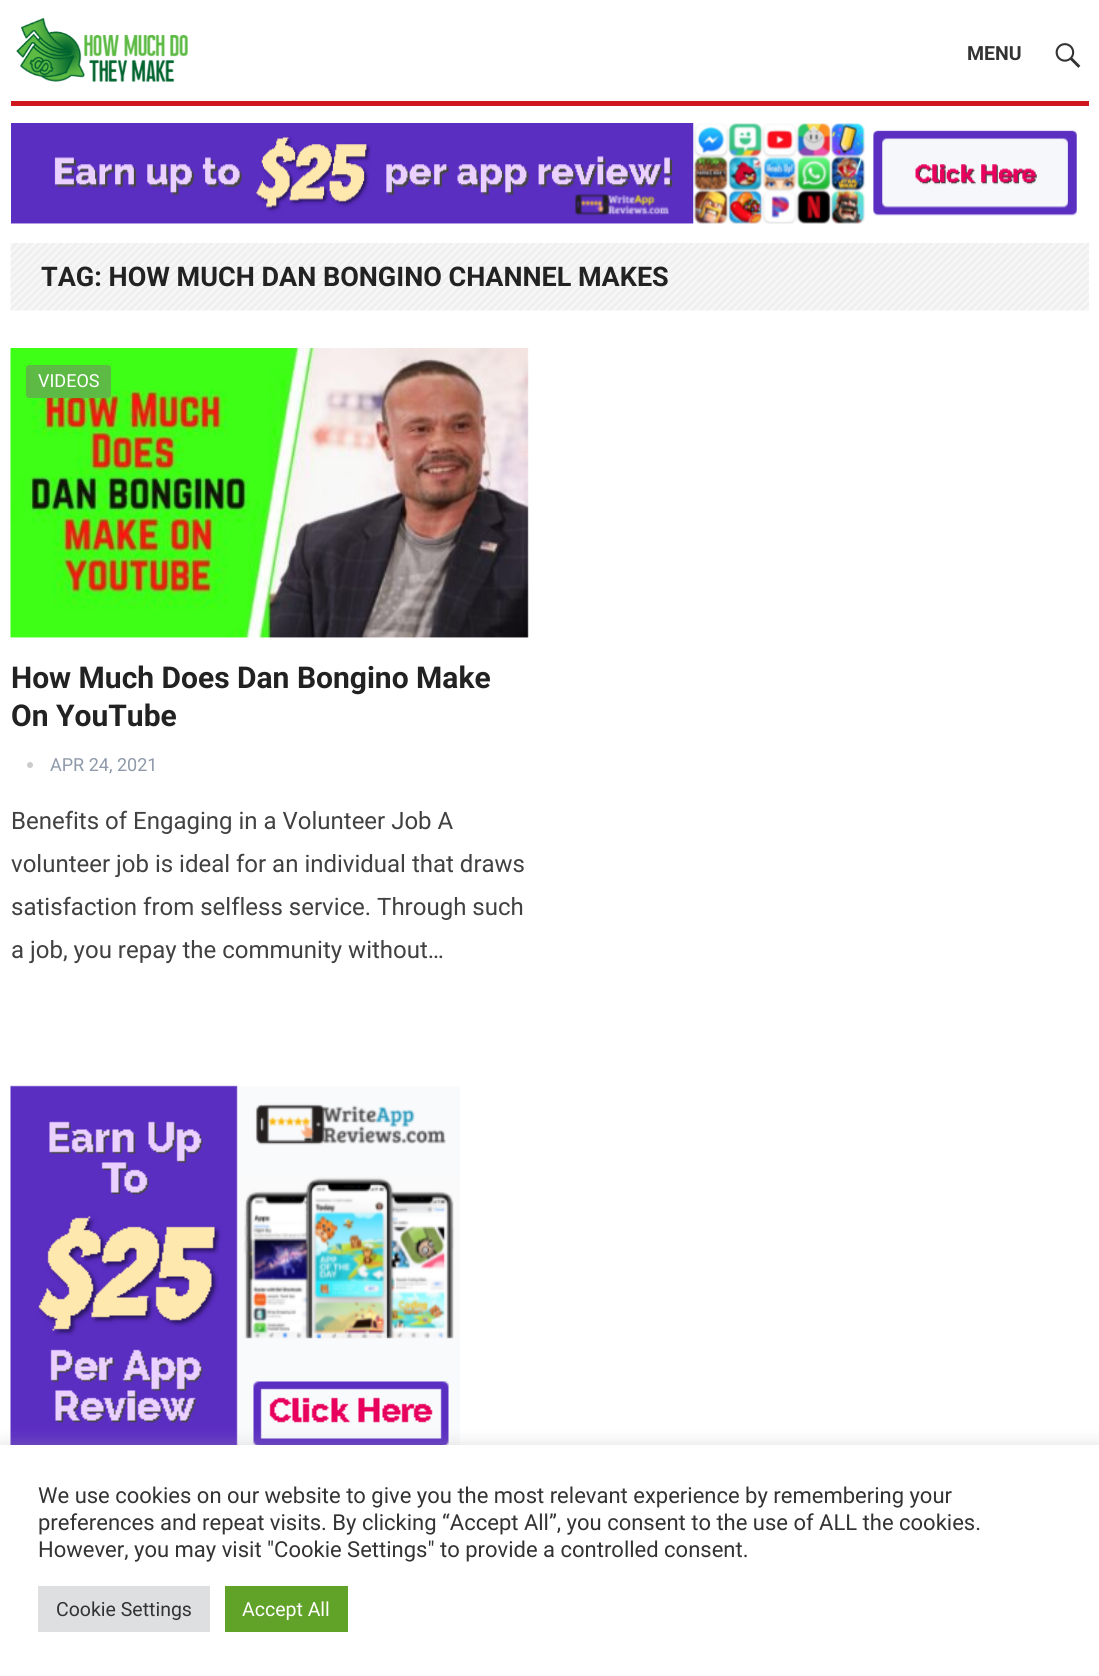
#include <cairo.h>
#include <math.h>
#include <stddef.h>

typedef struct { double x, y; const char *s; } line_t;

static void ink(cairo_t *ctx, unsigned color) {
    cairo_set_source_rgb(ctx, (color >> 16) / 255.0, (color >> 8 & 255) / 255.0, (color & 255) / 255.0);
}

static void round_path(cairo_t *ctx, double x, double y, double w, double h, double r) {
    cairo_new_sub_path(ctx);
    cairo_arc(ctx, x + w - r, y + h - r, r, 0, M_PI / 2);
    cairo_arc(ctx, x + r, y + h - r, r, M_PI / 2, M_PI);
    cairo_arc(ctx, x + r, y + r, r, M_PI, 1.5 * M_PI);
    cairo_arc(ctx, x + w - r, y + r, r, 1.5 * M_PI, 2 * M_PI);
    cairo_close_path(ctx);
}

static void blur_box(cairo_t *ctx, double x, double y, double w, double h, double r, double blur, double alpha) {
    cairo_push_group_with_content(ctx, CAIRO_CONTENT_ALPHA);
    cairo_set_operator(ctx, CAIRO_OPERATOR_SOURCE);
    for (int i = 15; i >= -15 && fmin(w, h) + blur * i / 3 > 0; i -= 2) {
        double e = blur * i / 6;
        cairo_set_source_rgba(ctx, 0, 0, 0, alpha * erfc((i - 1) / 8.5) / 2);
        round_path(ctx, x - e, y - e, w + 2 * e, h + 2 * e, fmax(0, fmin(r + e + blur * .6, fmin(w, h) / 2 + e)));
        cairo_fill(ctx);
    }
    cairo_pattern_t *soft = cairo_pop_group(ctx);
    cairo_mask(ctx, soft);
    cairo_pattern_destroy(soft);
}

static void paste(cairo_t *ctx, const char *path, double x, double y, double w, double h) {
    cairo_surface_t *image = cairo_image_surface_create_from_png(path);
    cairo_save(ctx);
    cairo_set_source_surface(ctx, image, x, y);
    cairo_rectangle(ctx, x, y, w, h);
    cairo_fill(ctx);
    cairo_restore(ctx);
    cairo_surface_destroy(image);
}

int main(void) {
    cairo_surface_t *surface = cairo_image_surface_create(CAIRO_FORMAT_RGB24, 1099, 1676);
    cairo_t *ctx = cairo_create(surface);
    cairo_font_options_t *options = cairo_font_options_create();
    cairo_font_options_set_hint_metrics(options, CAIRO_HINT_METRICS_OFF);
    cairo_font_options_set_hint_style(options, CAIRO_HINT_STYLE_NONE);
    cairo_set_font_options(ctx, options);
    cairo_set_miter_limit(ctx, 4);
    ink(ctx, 0xFFFFFF);
    cairo_paint(ctx);
    ink(ctx, 0xCE181E);
    cairo_rectangle(ctx, 11, 101, 1078, 5);
    cairo_fill(ctx);
    paste(ctx, "media/1.png", 16, 17, 172, 65);
    paste(ctx, "media/2.png", 11, 123, 1066, 101);
    cairo_select_font_face(ctx, "Roboto", CAIRO_FONT_SLANT_NORMAL, CAIRO_FONT_WEIGHT_BOLD);
    cairo_set_font_size(ctx, 19.5);
    ink(ctx, 0x333333);
    cairo_move_to(ctx, 967, 60);
    cairo_show_text(ctx, "MENU");
    paste(ctx, "media/3.png", 1055, 43, 26, 25);
    paste(ctx, "media/4.png", 10, 243, 1079, 68);
    cairo_set_font_size(ctx, 27);
    ink(ctx, 0x222222);
    cairo_move_to(ctx, 41, 286);
    cairo_show_text(ctx, "TAG: HOW MUCH DAN BONGINO CHANNEL MAKES");
    paste(ctx, "media/5.png", 10, 348, 519, 290);
    ink(ctx, 0x5DBA45);
    round_path(ctx, 26, 365, 85, 33, 3);
    cairo_fill(ctx);
    cairo_select_font_face(ctx, "Roboto", CAIRO_FONT_SLANT_NORMAL, CAIRO_FONT_WEIGHT_NORMAL);
    cairo_set_font_size(ctx, 18);
    ink(ctx, 0xFFFFFF);
    cairo_move_to(ctx, 38, 387);
    cairo_show_text(ctx, "VIDEOS");
    cairo_select_font_face(ctx, "Roboto", CAIRO_FONT_SLANT_NORMAL, CAIRO_FONT_WEIGHT_BOLD);
    cairo_set_font_size(ctx, 30);
    ink(ctx, 0x222222);
    cairo_move_to(ctx, 11, 688);
    cairo_show_text(ctx, "How Much Does Dan Bongino Make");
    cairo_move_to(ctx, 11, 726);
    cairo_show_text(ctx, "On YouTube");
    ink(ctx, 0xCCCCCC);
    cairo_new_path(ctx);
    cairo_arc(ctx, 30, 765, 3, 0, 2 * M_PI);
    cairo_fill(ctx);
    cairo_select_font_face(ctx, "Roboto", CAIRO_FONT_SLANT_NORMAL, CAIRO_FONT_WEIGHT_NORMAL);
    cairo_set_font_size(ctx, 18);
    ink(ctx, 0x8E99A9);
    cairo_move_to(ctx, 50, 771);
    cairo_show_text(ctx, "APR 24, 2021");
    cairo_set_font_size(ctx, 24);
    ink(ctx, 0x414141);
    {
        static const line_t items[] = {
            {11, 829, "Benefits of Engaging in a Volunteer Job A"},
            {11, 872, "volunteer job is ideal for an individual that draws"},
            {11, 915, "satisfaction from selfless service. Through such"},
            {11, 958, "a job, you repay the community without…"},
        };
        for (size_t i = 0; i < sizeof items / sizeof *items; i++) {
            cairo_move_to(ctx, items[i].x, items[i].y);
            cairo_show_text(ctx, items[i].s);
        }
    }
    paste(ctx, "media/6.png", 10, 1085, 450, 360);
    ink(ctx, 0xACABAB);
    blur_box(ctx, 0, 1443, 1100, 233, 0, 7.5, 0.3);
    ink(ctx, 0xFFFFFF);
    cairo_rectangle(ctx, 0, 1445, 1099, 231);
    cairo_fill(ctx);
    cairo_set_font_size(ctx, 22);
    ink(ctx, 0x333333);
    {
        static const line_t items[] = {
            {38, 1503, "We use cookies on our website to give you the most relevant experience by remembering your"},
            {38, 1530, "preferences and repeat visits. By clicking “Accept All”, you consent to the use of ALL the cookies."},
            {38, 1557, "However, you may visit \"Cookie Settings\" to provide a controlled consent."},
        };
        for (size_t i = 0; i < sizeof items / sizeof *items; i++) {
            cairo_move_to(ctx, items[i].x, items[i].y);
            cairo_show_text(ctx, items[i].s);
        }
    }
    ink(ctx, 0xDEDFE0);
    cairo_rectangle(ctx, 38, 1586, 172, 46);
    cairo_fill(ctx);
    cairo_set_font_size(ctx, 19.5);
    ink(ctx, 0x333333);
    cairo_move_to(ctx, 56, 1616);
    cairo_show_text(ctx, "Cookie Settings");
    ink(ctx, 0x61A229);
    cairo_rectangle(ctx, 225, 1586, 123, 46);
    cairo_fill(ctx);
    ink(ctx, 0xFFFFFF);
    cairo_move_to(ctx, 242, 1616);
    cairo_show_text(ctx, "Accept All");
    cairo_surface_write_to_png(surface, "image.png");
    cairo_font_options_destroy(options);
    cairo_destroy(ctx);
    cairo_surface_destroy(surface);
    return 0;
}
